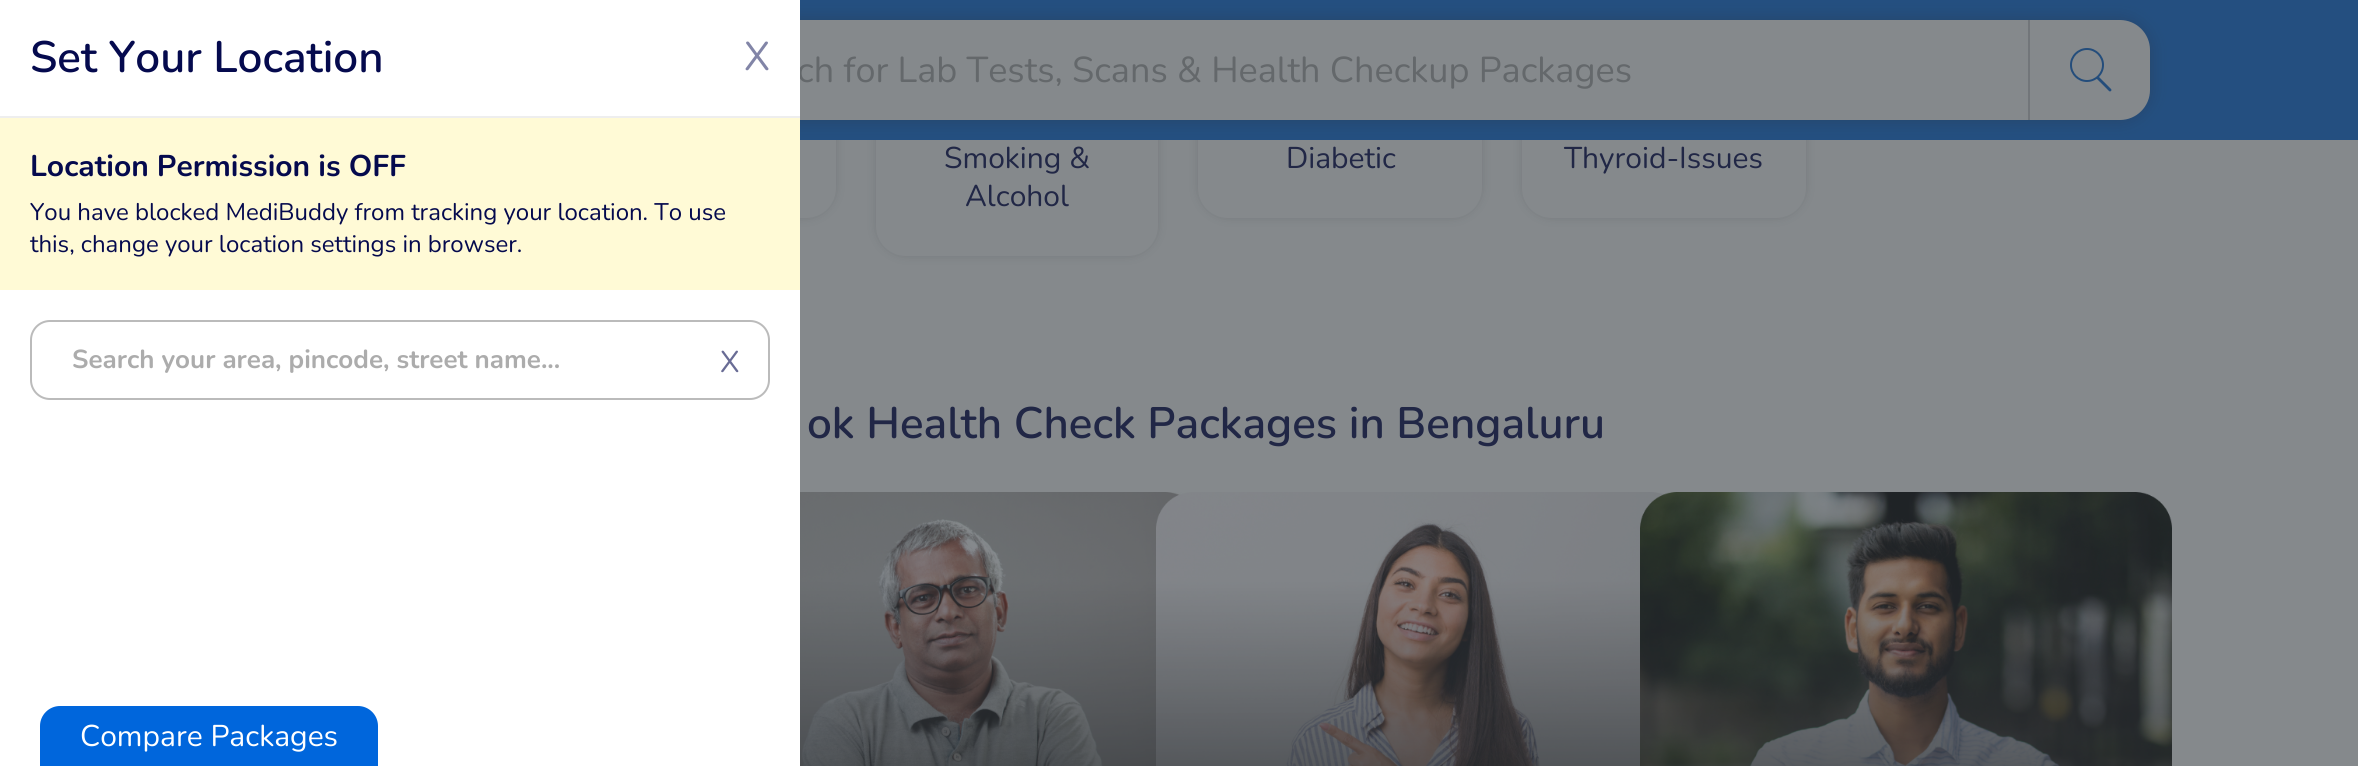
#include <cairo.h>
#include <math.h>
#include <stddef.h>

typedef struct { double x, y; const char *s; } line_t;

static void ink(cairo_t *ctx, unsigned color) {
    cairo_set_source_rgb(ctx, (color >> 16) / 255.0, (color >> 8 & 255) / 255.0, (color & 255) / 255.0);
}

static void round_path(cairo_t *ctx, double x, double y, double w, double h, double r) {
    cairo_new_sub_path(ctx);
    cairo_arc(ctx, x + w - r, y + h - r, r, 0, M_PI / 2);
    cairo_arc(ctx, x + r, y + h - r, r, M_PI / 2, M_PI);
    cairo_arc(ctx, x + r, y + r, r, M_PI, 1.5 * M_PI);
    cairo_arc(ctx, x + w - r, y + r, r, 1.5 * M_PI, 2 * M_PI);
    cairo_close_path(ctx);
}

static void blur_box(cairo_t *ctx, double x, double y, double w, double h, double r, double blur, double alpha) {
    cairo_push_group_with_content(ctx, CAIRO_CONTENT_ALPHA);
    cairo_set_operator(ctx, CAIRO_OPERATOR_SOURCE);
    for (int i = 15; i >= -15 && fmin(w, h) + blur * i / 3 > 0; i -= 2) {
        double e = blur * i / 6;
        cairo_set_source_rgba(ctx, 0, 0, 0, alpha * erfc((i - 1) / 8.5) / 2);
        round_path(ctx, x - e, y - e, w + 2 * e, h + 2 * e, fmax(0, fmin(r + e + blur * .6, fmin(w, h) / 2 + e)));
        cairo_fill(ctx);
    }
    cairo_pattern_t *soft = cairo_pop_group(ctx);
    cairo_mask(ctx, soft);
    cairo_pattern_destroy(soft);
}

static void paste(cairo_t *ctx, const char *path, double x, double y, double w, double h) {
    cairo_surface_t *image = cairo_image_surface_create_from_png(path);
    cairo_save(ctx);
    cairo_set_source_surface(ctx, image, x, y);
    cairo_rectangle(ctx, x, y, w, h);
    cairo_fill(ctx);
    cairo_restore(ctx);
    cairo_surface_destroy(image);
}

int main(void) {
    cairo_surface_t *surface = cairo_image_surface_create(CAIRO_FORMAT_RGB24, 2358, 766);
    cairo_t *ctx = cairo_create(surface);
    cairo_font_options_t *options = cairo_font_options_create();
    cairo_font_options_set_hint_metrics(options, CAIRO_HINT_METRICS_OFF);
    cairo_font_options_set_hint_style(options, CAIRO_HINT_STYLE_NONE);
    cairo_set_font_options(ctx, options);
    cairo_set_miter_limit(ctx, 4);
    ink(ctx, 0x85898C);
    cairo_paint(ctx);
    ink(ctx, 0x292C30);
    blur_box(ctx, 552, -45, 284, 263, 30, 5, 0.16);
    ink(ctx, 0x85898C);
    round_path(ctx, 552, -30, 284, 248, 30);
    cairo_fill(ctx);
    ink(ctx, 0x292C30);
    blur_box(ctx, 876, -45, 282, 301, 30, 5, 0.16);
    ink(ctx, 0x85898C);
    round_path(ctx, 876, -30, 282, 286, 30);
    cairo_fill(ctx);
    ink(ctx, 0x292C30);
    blur_box(ctx, 1198, -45, 284, 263, 30, 5, 0.16);
    ink(ctx, 0x85898C);
    round_path(ctx, 1198, -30, 284, 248, 30);
    cairo_fill(ctx);
    ink(ctx, 0x292C30);
    blur_box(ctx, 1522, -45, 284, 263, 30, 5, 0.16);
    ink(ctx, 0x85898C);
    round_path(ctx, 1522, -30, 284, 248, 30);
    cairo_fill(ctx);
    ink(ctx, 0x244F80);
    cairo_rectangle(ctx, 800, 0, 1558, 140);
    cairo_fill(ctx);
    ink(ctx, 0x292C30);
    blur_box(ctx, 694, 20, 1456, 100, 30, 8, 0.3);
    ink(ctx, 0x85898C);
    cairo_rectangle(ctx, 800, 20, 1228, 100);
    cairo_fill(ctx);
    cairo_select_font_face(ctx, "Nunito", CAIRO_FONT_SLANT_NORMAL, CAIRO_FONT_WEIGHT_NORMAL);
    cairo_set_font_size(ctx, 36);
    ink(ctx, 0x64686B);
    cairo_move_to(ctx, 797, 82);
    cairo_show_text(ctx, "ch for Lab Tests, Scans & Health Checkup Packages");
    ink(ctx, 0xFFFFFF);
    cairo_rectangle(ctx, 0, 0, 800, 766);
    cairo_fill(ctx);
    cairo_select_font_face(ctx, "Nunito SemiBold", CAIRO_FONT_SLANT_NORMAL, CAIRO_FONT_WEIGHT_NORMAL);
    cairo_set_font_size(ctx, 44);
    ink(ctx, 0x050A4E);
    cairo_move_to(ctx, 30, 72);
    cairo_show_text(ctx, "Set Your Location");
    cairo_select_font_face(ctx, "Nunito", CAIRO_FONT_SLANT_NORMAL, CAIRO_FONT_WEIGHT_NORMAL);
    cairo_set_font_size(ctx, 40);
    ink(ctx, 0x8285A7);
    cairo_move_to(ctx, 744, 70);
    cairo_show_text(ctx, "X");
    ink(ctx, 0xEEEEEE);
    cairo_rectangle(ctx, 0, 116, 800, 2);
    cairo_fill(ctx);
    ink(ctx, 0xFFFAD6);
    cairo_rectangle(ctx, 0, 118, 800, 172);
    cairo_fill(ctx);
    cairo_select_font_face(ctx, "Nunito", CAIRO_FONT_SLANT_NORMAL, CAIRO_FONT_WEIGHT_BOLD);
    cairo_set_font_size(ctx, 30);
    ink(ctx, 0x050A4E);
    cairo_move_to(ctx, 30, 176);
    cairo_show_text(ctx, "Location Permission is OFF");
    cairo_select_font_face(ctx, "Nunito", CAIRO_FONT_SLANT_NORMAL, CAIRO_FONT_WEIGHT_NORMAL);
    cairo_set_font_size(ctx, 24);
    cairo_move_to(ctx, 30, 220);
    cairo_show_text(ctx, "You have blocked MediBuddy from tracking your location. To use");
    cairo_move_to(ctx, 30, 252);
    cairo_show_text(ctx, "this, change your location settings in browser.");
    round_path(ctx, 31, 321, 738, 78, 19);
    ink(ctx, 0xBBBBBB);
    cairo_stroke(ctx);
    cairo_select_font_face(ctx, "Nunito", CAIRO_FONT_SLANT_NORMAL, CAIRO_FONT_WEIGHT_BOLD);
    cairo_set_font_size(ctx, 26);
    ink(ctx, 0xACACAC);
    cairo_move_to(ctx, 72, 368);
    cairo_show_text(ctx, "Search your area, pincode, street name...");
    cairo_select_font_face(ctx, "Nunito", CAIRO_FONT_SLANT_NORMAL, CAIRO_FONT_WEIGHT_NORMAL);
    cairo_set_font_size(ctx, 30);
    ink(ctx, 0x696C95);
    cairo_move_to(ctx, 720, 372);
    cairo_show_text(ctx, "X");
    ink(ctx, 0x85898C);
    cairo_new_path(ctx);
    cairo_move_to(ctx, 2028, 20);
    cairo_line_to(ctx, 2120, 20);
    cairo_curve_to(ctx, 2136.5, 20, 2150, 33.5, 2150, 50);
    cairo_line_to(ctx, 2150, 90);
    cairo_curve_to(ctx, 2150, 106.5, 2136.5, 120, 2120, 120);
    cairo_line_to(ctx, 2028, 120);
    cairo_close_path(ctx);
    cairo_fill(ctx);
    ink(ctx, 0x72767A);
    cairo_rectangle(ctx, 2028, 20, 2, 100);
    cairo_fill(ctx);
    paste(ctx, "media/1.png", 2070, 48, 42, 44);
    ink(ctx, 0x212746);
    {
        static const line_t items[] = {
            {944, 168, "Smoking &"},
            {965, 206, "Alcohol"},
            {1286, 168, "Diabetic"},
            {1564, 168, "Thyroid-Issues"},
        };
        for (size_t i = 0; i < sizeof items / sizeof *items; i++) {
            cairo_move_to(ctx, items[i].x, items[i].y);
            cairo_show_text(ctx, items[i].s);
        }
    }
    cairo_select_font_face(ctx, "Nunito SemiBold", CAIRO_FONT_SLANT_NORMAL, CAIRO_FONT_WEIGHT_NORMAL);
    cairo_set_font_size(ctx, 44);
    cairo_move_to(ctx, 807, 438);
    cairo_show_text(ctx, "ok Health Check Packages in Bengaluru");
    paste(ctx, "media/2.png", 800, 492, 383, 274);
    paste(ctx, "media/3.png", 1156, 492, 510, 274);
    paste(ctx, "media/4.png", 1640, 492, 532, 274);
    ink(ctx, 0x0066DC);
    cairo_new_path(ctx);
    cairo_move_to(ctx, 60, 706);
    cairo_line_to(ctx, 358, 706);
    cairo_curve_to(ctx, 369, 706, 378, 715, 378, 726);
    cairo_line_to(ctx, 378, 766);
    cairo_line_to(ctx, 40, 766);
    cairo_line_to(ctx, 40, 726);
    cairo_curve_to(ctx, 40, 715, 49, 706, 60, 706);
    cairo_close_path(ctx);
    cairo_fill(ctx);
    cairo_select_font_face(ctx, "Nunito", CAIRO_FONT_SLANT_NORMAL, CAIRO_FONT_WEIGHT_NORMAL);
    cairo_set_font_size(ctx, 30);
    ink(ctx, 0xFFFFFF);
    cairo_move_to(ctx, 80, 746);
    cairo_show_text(ctx, "Compare Packages");
    cairo_surface_write_to_png(surface, "image.png");
    cairo_font_options_destroy(options);
    cairo_destroy(ctx);
    cairo_surface_destroy(surface);
    return 0;
}
